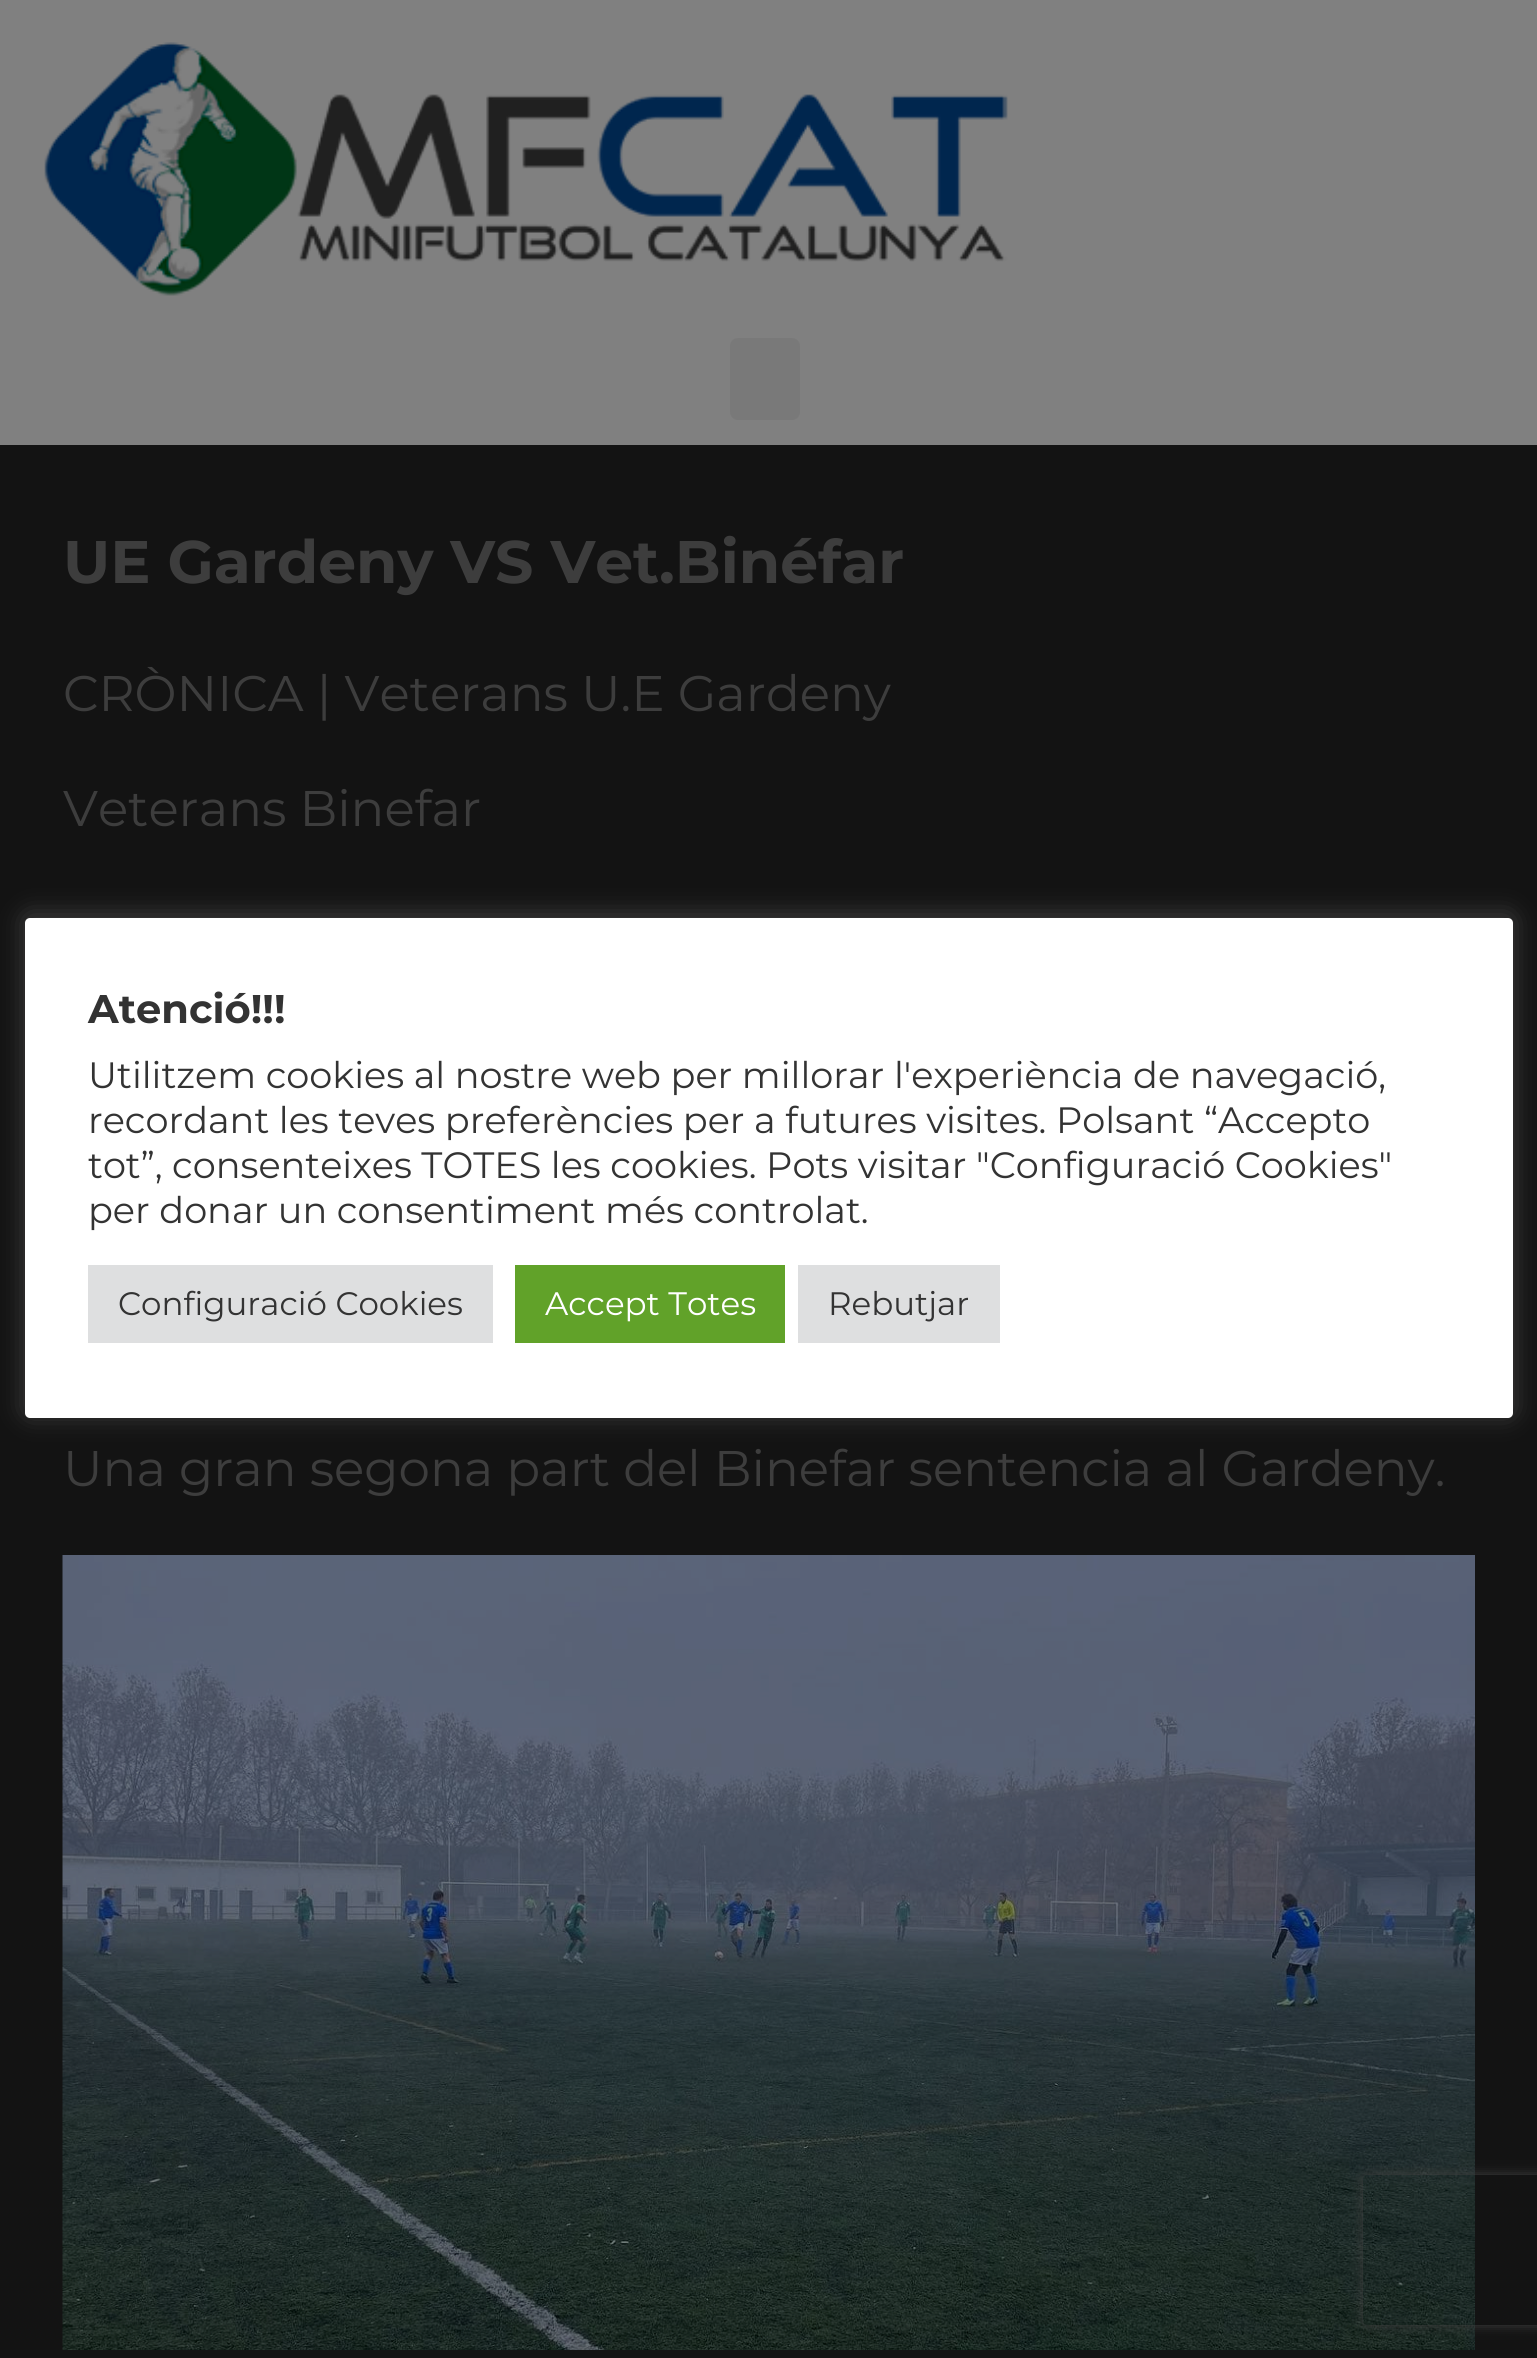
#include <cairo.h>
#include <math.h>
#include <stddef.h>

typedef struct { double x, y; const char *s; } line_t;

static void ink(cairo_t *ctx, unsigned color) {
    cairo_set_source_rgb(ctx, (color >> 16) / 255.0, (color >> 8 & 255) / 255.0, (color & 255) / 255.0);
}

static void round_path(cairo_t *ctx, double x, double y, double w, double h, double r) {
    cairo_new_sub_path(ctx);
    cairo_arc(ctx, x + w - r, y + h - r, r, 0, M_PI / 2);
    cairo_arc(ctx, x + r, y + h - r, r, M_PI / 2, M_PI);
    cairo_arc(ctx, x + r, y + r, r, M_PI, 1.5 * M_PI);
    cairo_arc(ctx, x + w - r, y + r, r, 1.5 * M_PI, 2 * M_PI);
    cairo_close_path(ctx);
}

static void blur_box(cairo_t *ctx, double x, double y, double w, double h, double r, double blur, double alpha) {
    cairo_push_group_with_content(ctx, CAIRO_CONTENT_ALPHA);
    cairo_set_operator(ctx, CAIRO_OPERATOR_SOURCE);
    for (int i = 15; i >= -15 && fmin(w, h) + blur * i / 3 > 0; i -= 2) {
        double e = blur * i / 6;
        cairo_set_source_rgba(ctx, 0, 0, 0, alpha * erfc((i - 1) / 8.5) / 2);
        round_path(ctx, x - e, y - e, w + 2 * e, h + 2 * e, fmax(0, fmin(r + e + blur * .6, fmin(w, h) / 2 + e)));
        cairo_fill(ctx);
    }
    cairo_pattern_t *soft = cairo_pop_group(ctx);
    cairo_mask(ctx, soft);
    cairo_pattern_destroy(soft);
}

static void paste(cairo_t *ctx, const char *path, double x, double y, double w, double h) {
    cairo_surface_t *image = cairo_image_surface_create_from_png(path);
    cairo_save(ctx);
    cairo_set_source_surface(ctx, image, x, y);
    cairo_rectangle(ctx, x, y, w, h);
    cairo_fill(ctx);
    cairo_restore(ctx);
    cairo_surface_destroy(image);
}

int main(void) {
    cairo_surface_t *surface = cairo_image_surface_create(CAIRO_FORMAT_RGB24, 1537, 2358);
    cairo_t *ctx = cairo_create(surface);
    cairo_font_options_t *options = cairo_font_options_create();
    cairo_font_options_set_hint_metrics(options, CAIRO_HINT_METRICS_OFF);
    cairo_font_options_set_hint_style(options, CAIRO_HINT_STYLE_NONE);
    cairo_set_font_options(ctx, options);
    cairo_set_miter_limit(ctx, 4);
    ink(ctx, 0x131313);
    cairo_paint(ctx);
    ink(ctx, 0x808080);
    cairo_rectangle(ctx, 0, 0, 1537, 445);
    cairo_fill(ctx);
    paste(ctx, "media/1.png", 44, 42, 964, 254);
    ink(ctx, 0x797979);
    round_path(ctx, 730, 338, 70, 82, 8);
    cairo_fill(ctx);
    cairo_select_font_face(ctx, "Montserrat", CAIRO_FONT_SLANT_NORMAL, CAIRO_FONT_WEIGHT_BOLD);
    cairo_set_font_size(ctx, 60);
    ink(ctx, 0x3D3D3D);
    cairo_move_to(ctx, 63, 583);
    cairo_show_text(ctx, "UE Gardeny VS Vet.Binéfar");
    cairo_select_font_face(ctx, "Montserrat", CAIRO_FONT_SLANT_NORMAL, CAIRO_FONT_WEIGHT_NORMAL);
    cairo_set_font_size(ctx, 50);
    {
        static const line_t items[] = {
            {63, 711, "CRÒNICA | Veterans U.E Gardeny"},
            {63, 826, "Veterans Binefar"},
            {63, 1486, "Una gran segona part del Binefar sentencia al Gardeny."},
        };
        for (size_t i = 0; i < sizeof items / sizeof *items; i++) {
            cairo_move_to(ctx, items[i].x, items[i].y);
            cairo_show_text(ctx, items[i].s);
        }
    }
    paste(ctx, "media/2.png", 62, 1555, 1413, 795);
    ink(ctx, 0xACABAB);
    blur_box(ctx, 25, 915, 1488, 500, 5, 12.5, 0.3);
    ink(ctx, 0xFFFFFF);
    round_path(ctx, 25, 918, 1488, 500, 5);
    cairo_fill(ctx);
    cairo_select_font_face(ctx, "Montserrat", CAIRO_FONT_SLANT_NORMAL, CAIRO_FONT_WEIGHT_BOLD);
    cairo_set_font_size(ctx, 40);
    ink(ctx, 0x333333);
    cairo_move_to(ctx, 88, 1023);
    cairo_show_text(ctx, "Atenció!!!");
    cairo_select_font_face(ctx, "Montserrat", CAIRO_FONT_SLANT_NORMAL, CAIRO_FONT_WEIGHT_NORMAL);
    cairo_set_font_size(ctx, 36.65);
    {
        static const line_t items[] = {
            {88, 1088, "Utilitzem cookies al nostre web per millorar l'experiència de navegació,"},
            {88, 1133, "recordant les teves preferències per a futures visites. Polsant “Accepto"},
            {88, 1178, "tot”, consenteixes TOTES les cookies. Pots visitar \"Configuració Cookies\""},
            {88, 1223, "per donar un consentiment més controlat."},
        };
        for (size_t i = 0; i < sizeof items / sizeof *items; i++) {
            cairo_move_to(ctx, items[i].x, items[i].y);
            cairo_show_text(ctx, items[i].s);
        }
    }
    ink(ctx, 0xDEDFE0);
    cairo_rectangle(ctx, 88, 1265, 405, 78);
    cairo_fill(ctx);
    cairo_set_font_size(ctx, 32.5);
    ink(ctx, 0x333333);
    cairo_move_to(ctx, 118, 1315);
    cairo_show_text(ctx, "Configuració Cookies");
    ink(ctx, 0x61A229);
    cairo_rectangle(ctx, 515, 1265, 270, 78);
    cairo_fill(ctx);
    ink(ctx, 0xFFFFFF);
    cairo_move_to(ctx, 545, 1315);
    cairo_show_text(ctx, "Accept Totes");
    ink(ctx, 0xDEDFE0);
    cairo_rectangle(ctx, 798, 1265, 202, 78);
    cairo_fill(ctx);
    ink(ctx, 0x333333);
    cairo_move_to(ctx, 828, 1315);
    cairo_show_text(ctx, "Rebutjar");
    cairo_save(ctx);
    cairo_set_fill_rule(ctx, CAIRO_FILL_RULE_EVEN_ODD);
    cairo_new_path(ctx);
    cairo_move_to(ctx, 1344, 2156);
    cairo_line_to(ctx, 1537, 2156);
    cairo_line_to(ctx, 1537, 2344);
    cairo_line_to(ctx, 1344, 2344);
    cairo_close_path(ctx);
    cairo_move_to(ctx, 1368, 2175);
    cairo_line_to(ctx, 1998, 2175);
    cairo_curve_to(ctx, 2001, 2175, 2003, 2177, 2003, 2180);
    cairo_line_to(ctx, 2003, 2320);
    cairo_curve_to(ctx, 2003, 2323, 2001, 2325, 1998, 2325);
    cairo_line_to(ctx, 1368, 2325);
    cairo_curve_to(ctx, 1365, 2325, 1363, 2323, 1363, 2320);
    cairo_line_to(ctx, 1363, 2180);
    cairo_curve_to(ctx, 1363, 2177, 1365, 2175, 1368, 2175);
    cairo_close_path(ctx);
    cairo_clip(ctx);
    ink(ctx, 0x404040);
    blur_box(ctx, 1363, 2175, 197, 150, 5, 6, 1);
    cairo_restore(ctx);
    cairo_surface_write_to_png(surface, "image.png");
    cairo_font_options_destroy(options);
    cairo_destroy(ctx);
    cairo_surface_destroy(surface);
    return 0;
}
